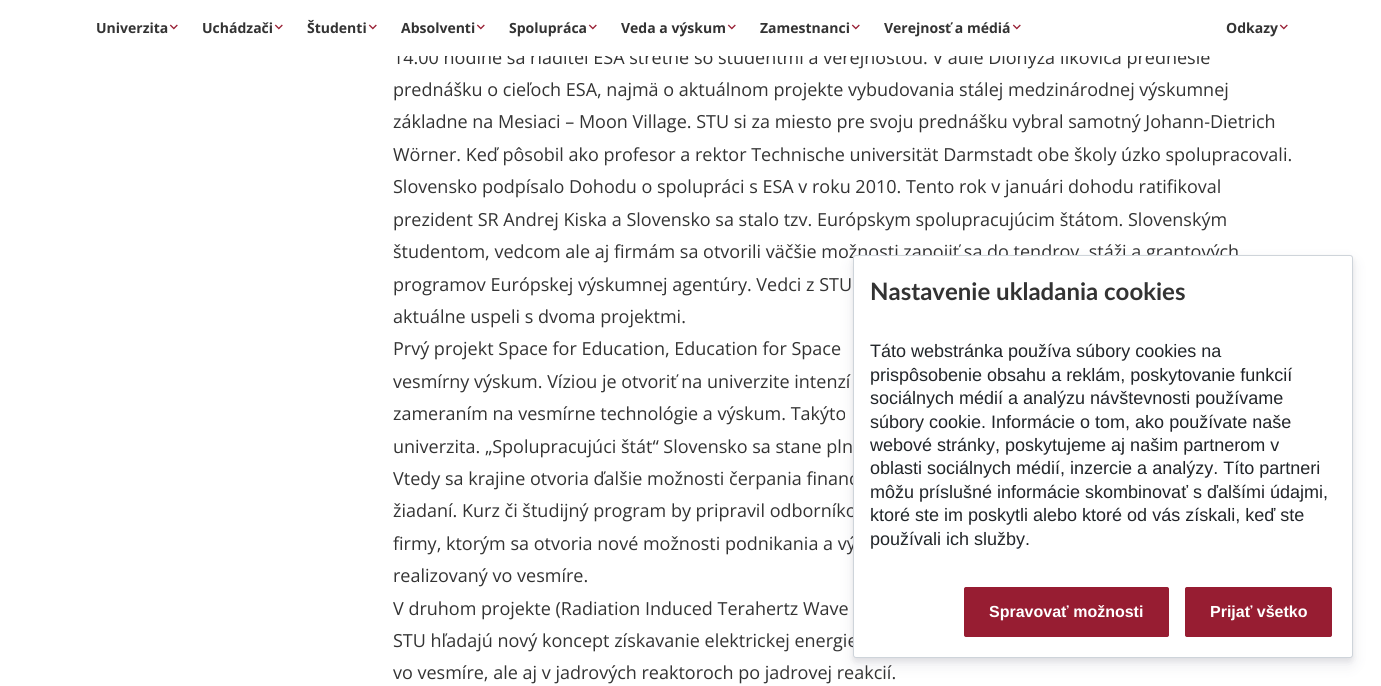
#include <cairo.h>
#include <math.h>
#include <stddef.h>

typedef struct { double x, y; const char *s; } line_t;

static void ink(cairo_t *ctx, unsigned color) {
    cairo_set_source_rgb(ctx, (color >> 16) / 255.0, (color >> 8 & 255) / 255.0, (color & 255) / 255.0);
}

static void round_path(cairo_t *ctx, double x, double y, double w, double h, double r) {
    cairo_new_sub_path(ctx);
    cairo_arc(ctx, x + w - r, y + h - r, r, 0, M_PI / 2);
    cairo_arc(ctx, x + r, y + h - r, r, M_PI / 2, M_PI);
    cairo_arc(ctx, x + r, y + r, r, M_PI, 1.5 * M_PI);
    cairo_arc(ctx, x + w - r, y + r, r, 1.5 * M_PI, 2 * M_PI);
    cairo_close_path(ctx);
}

static void blur_box(cairo_t *ctx, double x, double y, double w, double h, double r, double blur, double alpha) {
    cairo_push_group_with_content(ctx, CAIRO_CONTENT_ALPHA);
    cairo_set_operator(ctx, CAIRO_OPERATOR_SOURCE);
    for (int i = 15; i >= -15 && fmin(w, h) + blur * i / 3 > 0; i -= 2) {
        double e = blur * i / 6;
        cairo_set_source_rgba(ctx, 0, 0, 0, alpha * erfc((i - 1) / 8.5) / 2);
        round_path(ctx, x - e, y - e, w + 2 * e, h + 2 * e, fmax(0, fmin(r + e + blur * .6, fmin(w, h) / 2 + e)));
        cairo_fill(ctx);
    }
    cairo_pattern_t *soft = cairo_pop_group(ctx);
    cairo_mask(ctx, soft);
    cairo_pattern_destroy(soft);
}

static void paste(cairo_t *ctx, const char *path, double x, double y, double w, double h) {
    cairo_surface_t *image = cairo_image_surface_create_from_png(path);
    cairo_save(ctx);
    cairo_set_source_surface(ctx, image, x, y);
    cairo_rectangle(ctx, x, y, w, h);
    cairo_fill(ctx);
    cairo_restore(ctx);
    cairo_surface_destroy(image);
}

int main(void) {
    cairo_surface_t *surface = cairo_image_surface_create(CAIRO_FORMAT_RGB24, 1381, 686);
    cairo_t *ctx = cairo_create(surface);
    cairo_font_options_t *options = cairo_font_options_create();
    cairo_font_options_set_hint_metrics(options, CAIRO_HINT_METRICS_OFF);
    cairo_font_options_set_hint_style(options, CAIRO_HINT_STYLE_NONE);
    cairo_set_font_options(ctx, options);
    cairo_set_miter_limit(ctx, 4);
    ink(ctx, 0xFFFFFF);
    cairo_paint(ctx);
    cairo_select_font_face(ctx, "Open Sans", CAIRO_FONT_SLANT_NORMAL, CAIRO_FONT_WEIGHT_NORMAL);
    cairo_set_font_size(ctx, 18);
    ink(ctx, 0x333333);
    cairo_move_to(ctx, 393, 64);
    cairo_show_text(ctx, "14.00 hodine sa riaditeľ ESA stretne so študentmi a verejnosťou. V aule Dionýza Ilkoviča prednesie");
    ink(ctx, 0xFFFFFF);
    cairo_rectangle(ctx, 394, 50, 815, 6);
    cairo_fill(ctx);
    cairo_select_font_face(ctx, "Open Sans", CAIRO_FONT_SLANT_NORMAL, CAIRO_FONT_WEIGHT_BOLD);
    cairo_set_font_size(ctx, 14);
    ink(ctx, 0x333333);
    cairo_move_to(ctx, 96, 33);
    cairo_show_text(ctx, "Univerzita");
    paste(ctx, "media/1.png", 169, 24, 9, 6);
    cairo_move_to(ctx, 202, 33);
    cairo_show_text(ctx, "Uchádzači");
    paste(ctx, "media/1.png", 274, 24, 9, 6);
    cairo_move_to(ctx, 307, 33);
    cairo_show_text(ctx, "Študenti");
    paste(ctx, "media/1.png", 368, 24, 9, 6);
    cairo_move_to(ctx, 401, 33);
    cairo_show_text(ctx, "Absolventi");
    paste(ctx, "media/1.png", 476, 24, 9, 6);
    cairo_move_to(ctx, 509, 33);
    cairo_show_text(ctx, "Spolupráca");
    paste(ctx, "media/1.png", 588, 24, 9, 6);
    cairo_move_to(ctx, 621, 33);
    cairo_show_text(ctx, "Veda a výskum");
    paste(ctx, "media/1.png", 727, 24, 9, 6);
    cairo_move_to(ctx, 760, 33);
    cairo_show_text(ctx, "Zamestnanci");
    paste(ctx, "media/1.png", 851, 24, 9, 6);
    cairo_move_to(ctx, 884, 33);
    cairo_show_text(ctx, "Verejnosť a médiá");
    paste(ctx, "media/1.png", 1012, 24, 9, 6);
    cairo_move_to(ctx, 1226, 33);
    cairo_show_text(ctx, "Odkazy");
    paste(ctx, "media/1.png", 1279, 24, 9, 6);
    cairo_select_font_face(ctx, "Open Sans", CAIRO_FONT_SLANT_NORMAL, CAIRO_FONT_WEIGHT_NORMAL);
    cairo_set_font_size(ctx, 18);
    {
        static const line_t items[] = {
            {393, 96, "prednášku o cieľoch ESA, najmä o aktuálnom projekte vybudovania stálej medzinárodnej výskumnej"},
            {393, 128, "základne na Mesiaci – Moon Village. STU si za miesto pre svoju prednášku vybral samotný Johann-Dietrich"},
            {393, 161, "Wörner. Keď pôsobil ako profesor a rektor Technische universität Darmstadt obe školy úzko spolupracovali."},
            {393, 193, "Slovensko podpísalo Dohodu o spolupráci s ESA v roku 2010. Tento rok v januári dohodu ratifikoval"},
            {393, 226, "prezident SR Andrej Kiska a Slovensko sa stalo tzv. Európskym spolupracujúcim štátom. Slovenským"},
            {393, 258, "študentom, vedcom ale aj firmám sa otvorili väčšie možnosti zapojiť sa do tendrov, stáži a grantových"},
            {393, 291, "programov Európskej výskumnej agentúry. Vedci z STU"},
            {393, 323, "aktuálne uspeli s dvoma projektmi."},
            {393, 355, "Prvý projekt Space for Education, Education for Space"},
            {393, 388, "vesmírny výskum. Víziou je otvoriť na univerzite intenzí"},
            {393, 420, "zameraním na vesmírne technológie a výskum. Takýto"},
            {393, 453, "univerzita. „Spolupracujúci štát“ Slovensko sa stane pln"},
            {393, 485, "Vtedy sa krajine otvoria ďalšie možnosti čerpania financ"},
            {393, 517, "žiadaní. Kurz či študijný program by pripravil odborníko"},
            {393, 550, "firmy, ktorým sa otvoria nové možnosti podnikania a vý"},
            {393, 582, "realizovaný vo vesmíre."},
            {393, 615, "V druhom projekte (Radiation Induced Terahertz Wave"},
            {393, 647, "STU hľadajú nový koncept získavanie elektrickej energie"},
            {393, 679, "vo vesmíre, ale aj v jadrových reaktoroch po jadrovej reakcií."},
        };
        for (size_t i = 0; i < sizeof items / sizeof *items; i++) {
            cairo_move_to(ctx, items[i].x, items[i].y);
            cairo_show_text(ctx, items[i].s);
        }
    }
    ink(ctx, 0x000000);
    blur_box(ctx, 853, 258, 500, 403, 3, 3, 0.07);
    ink(ctx, 0x32325D);
    blur_box(ctx, 853, 262, 500, 403, 3, 7, 0.1);
    ink(ctx, 0xFFFFFF);
    round_path(ctx, 853.5, 255.5, 499, 402, 2.5);
    cairo_fill_preserve(ctx);
    ink(ctx, 0xCED4DA);
    cairo_set_line_width(ctx, 1);
    cairo_stroke(ctx);
    cairo_select_font_face(ctx, "Lato", CAIRO_FONT_SLANT_NORMAL, CAIRO_FONT_WEIGHT_BOLD);
    cairo_set_font_size(ctx, 24);
    ink(ctx, 0x333333);
    cairo_move_to(ctx, 870, 300);
    cairo_show_text(ctx, "Nastavenie ukladania cookies");
    cairo_select_font_face(ctx, "Liberation Sans", CAIRO_FONT_SLANT_NORMAL, CAIRO_FONT_WEIGHT_NORMAL);
    cairo_set_font_size(ctx, 18);
    ink(ctx, 0x212529);
    {
        static const line_t items[] = {
            {870, 357, "Táto webstránka používa súbory cookies na"},
            {870, 381, "prispôsobenie obsahu a reklám, poskytovanie funkcií"},
            {870, 404, "sociálnych médií a analýzu návštevnosti používame"},
            {870, 428, "súbory cookie. Informácie o tom, ako používate naše"},
            {870, 451, "webové stránky, poskytujeme aj našim partnerom v"},
            {870, 474, "oblasti sociálnych médií, inzercie a analýzy. Títo partneri"},
            {870, 498, "môžu príslušné informácie skombinovať s ďalšími údajmi,"},
            {870, 521, "ktoré ste im poskytli alebo ktoré od vás získali, keď ste"},
            {870, 545, "používali ich služby."},
        };
        for (size_t i = 0; i < sizeof items / sizeof *items; i++) {
            cairo_move_to(ctx, items[i].x, items[i].y);
            cairo_show_text(ctx, items[i].s);
        }
    }
    ink(ctx, 0x971D32);
    round_path(ctx, 964.5, 587.5, 204, 49, 1.5);
    cairo_fill_preserve(ctx);
    cairo_stroke(ctx);
    cairo_select_font_face(ctx, "Liberation Sans", CAIRO_FONT_SLANT_NORMAL, CAIRO_FONT_WEIGHT_BOLD);
    cairo_set_font_size(ctx, 16);
    ink(ctx, 0xFFFFFF);
    cairo_move_to(ctx, 989, 617);
    cairo_show_text(ctx, "Spravovať možnosti");
    ink(ctx, 0x971D32);
    round_path(ctx, 1185.5, 587.5, 146, 49, 1.5);
    cairo_fill_preserve(ctx);
    cairo_stroke(ctx);
    ink(ctx, 0xFFFFFF);
    cairo_move_to(ctx, 1210, 617);
    cairo_show_text(ctx, "Prijať všetko");
    cairo_surface_write_to_png(surface, "image.png");
    cairo_font_options_destroy(options);
    cairo_destroy(ctx);
    cairo_surface_destroy(surface);
    return 0;
}
